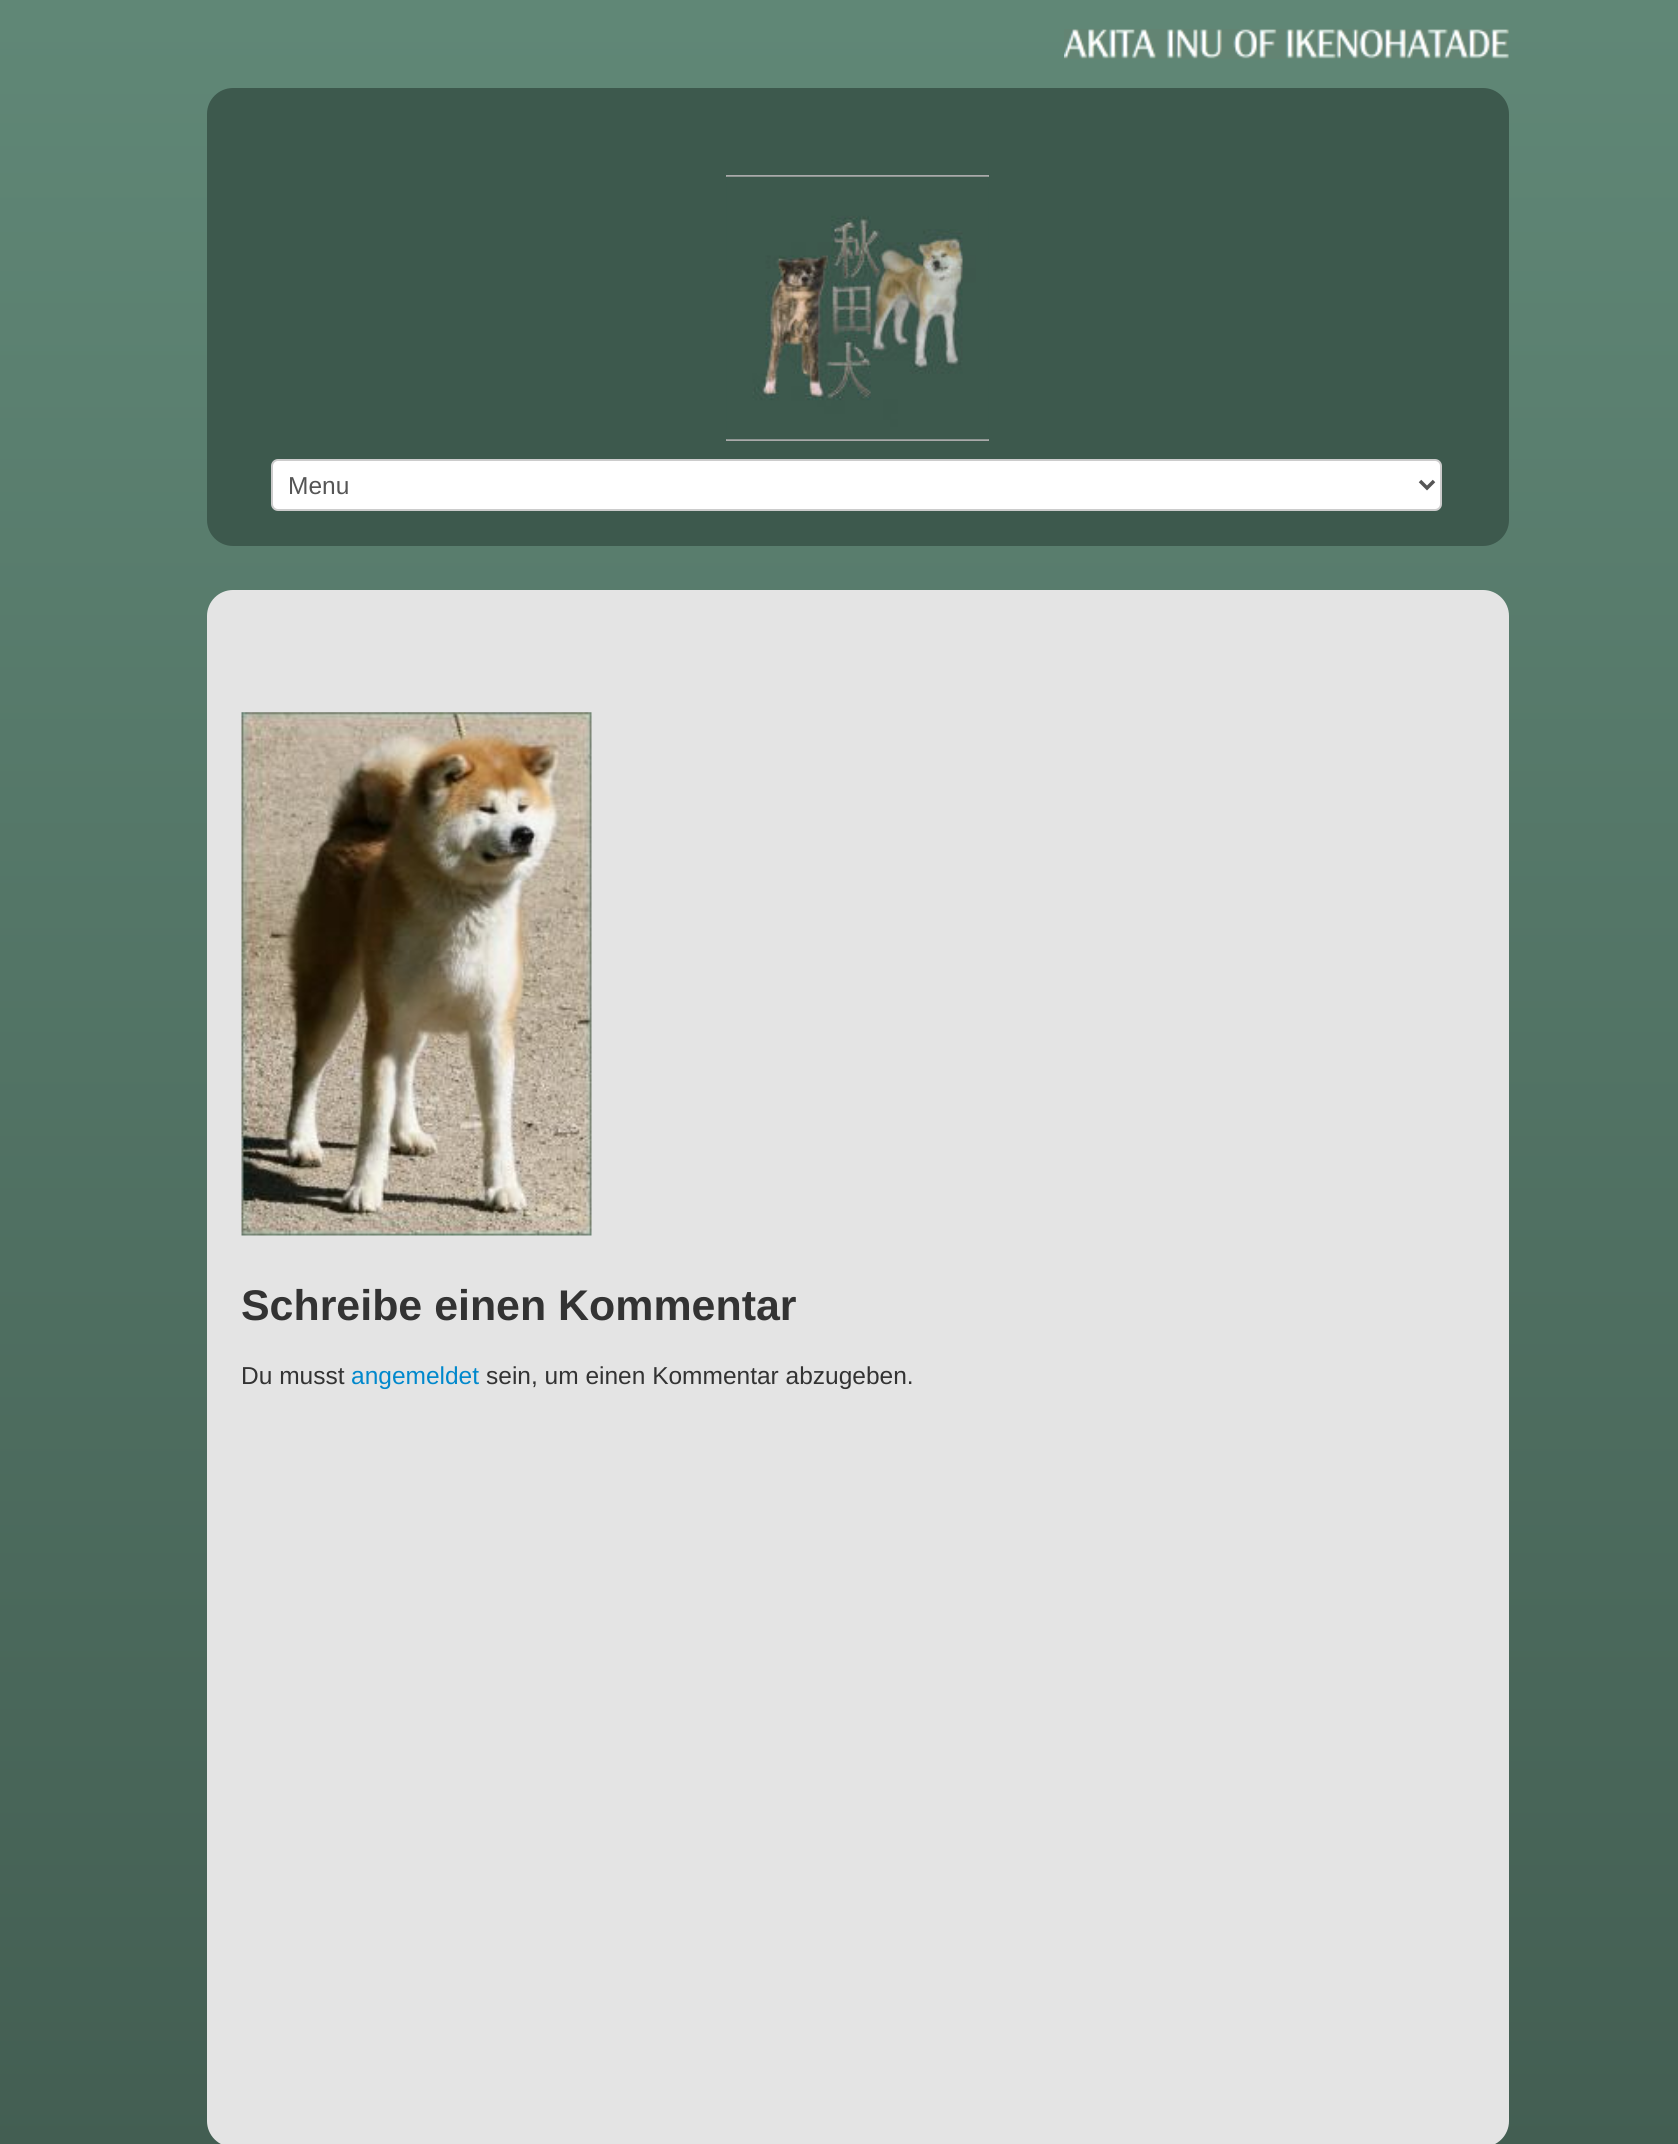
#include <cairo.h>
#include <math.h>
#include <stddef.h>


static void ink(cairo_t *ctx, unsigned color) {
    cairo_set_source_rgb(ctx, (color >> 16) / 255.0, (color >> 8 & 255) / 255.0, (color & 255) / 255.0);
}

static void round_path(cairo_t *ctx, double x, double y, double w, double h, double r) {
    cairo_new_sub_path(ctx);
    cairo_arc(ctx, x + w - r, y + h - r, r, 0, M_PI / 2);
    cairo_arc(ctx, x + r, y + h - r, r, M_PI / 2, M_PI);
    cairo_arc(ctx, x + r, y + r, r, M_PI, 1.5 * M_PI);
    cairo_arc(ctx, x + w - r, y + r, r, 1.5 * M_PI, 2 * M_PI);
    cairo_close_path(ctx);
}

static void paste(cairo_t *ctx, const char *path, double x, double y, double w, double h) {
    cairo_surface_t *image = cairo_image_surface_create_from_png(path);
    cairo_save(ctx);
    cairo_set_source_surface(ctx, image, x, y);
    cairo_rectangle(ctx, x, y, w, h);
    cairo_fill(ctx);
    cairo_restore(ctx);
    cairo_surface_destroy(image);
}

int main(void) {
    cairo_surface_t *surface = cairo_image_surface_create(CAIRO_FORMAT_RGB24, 1678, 2144);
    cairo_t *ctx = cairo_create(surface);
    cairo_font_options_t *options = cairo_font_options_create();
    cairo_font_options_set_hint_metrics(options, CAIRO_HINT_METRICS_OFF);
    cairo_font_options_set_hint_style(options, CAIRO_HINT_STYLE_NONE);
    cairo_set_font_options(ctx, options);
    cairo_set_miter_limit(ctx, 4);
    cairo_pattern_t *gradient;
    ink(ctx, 0xFFFFFF);
    cairo_paint(ctx);
    gradient = cairo_pattern_create_linear(839, 0, 839, 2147);
    cairo_pattern_add_color_stop_rgba(gradient, 0.01, 0.376, 0.529, 0.463, 1);
    cairo_pattern_add_color_stop_rgba(gradient, 1, 0.263, 0.369, 0.322, 1);
    cairo_set_source(ctx, gradient);
    cairo_pattern_destroy(gradient);
    cairo_rectangle(ctx, 0, 0, 1678, 2144);
    cairo_fill(ctx);
    ink(ctx, 0x3D594D);
    round_path(ctx, 207, 88, 1302, 458, 26);
    cairo_fill(ctx);
    paste(ctx, "media/1.png", 1064, 29, 445, 30);
    ink(ctx, 0xAAAAAA);
    cairo_rectangle(ctx, 726, 175, 263, 2);
    cairo_fill(ctx);
    cairo_rectangle(ctx, 726, 439, 263, 2);
    cairo_fill(ctx);
    paste(ctx, "media/2.png", 726, 176, 263, 264);
    ink(ctx, 0xFFFFFF);
    round_path(ctx, 272, 460, 1169, 50, 6);
    cairo_fill_preserve(ctx);
    ink(ctx, 0xCCCCCC);
    cairo_stroke(ctx);
    cairo_new_path(ctx);
    cairo_move_to(ctx, 1420, 481);
    cairo_line_to(ctx, 1427, 488);
    cairo_line_to(ctx, 1434, 481);
    ink(ctx, 0x555555);
    cairo_set_line_width(ctx, 3.5);
    cairo_stroke(ctx);
    cairo_select_font_face(ctx, "Liberation Sans", CAIRO_FONT_SLANT_NORMAL, CAIRO_FONT_WEIGHT_NORMAL);
    cairo_set_font_size(ctx, 24.5);
    cairo_move_to(ctx, 288, 494);
    cairo_show_text(ctx, "Menu");
    ink(ctx, 0xE4E4E4);
    round_path(ctx, 207, 590, 1302, 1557, 26);
    cairo_fill(ctx);
    paste(ctx, "media/3.png", 241, 712, 351, 524);
    cairo_select_font_face(ctx, "Liberation Sans", CAIRO_FONT_SLANT_NORMAL, CAIRO_FONT_WEIGHT_BOLD);
    cairo_set_font_size(ctx, 42.9);
    ink(ctx, 0x333333);
    cairo_move_to(ctx, 241, 1320);
    cairo_show_text(ctx, "Schreibe einen Kommentar");
    cairo_select_font_face(ctx, "Liberation Sans", CAIRO_FONT_SLANT_NORMAL, CAIRO_FONT_WEIGHT_NORMAL);
    cairo_set_font_size(ctx, 24.5);
    cairo_move_to(ctx, 241, 1384);
    cairo_show_text(ctx, "Du musst");
    ink(ctx, 0x0088CC);
    cairo_move_to(ctx, 351, 1384);
    cairo_show_text(ctx, "angemeldet");
    ink(ctx, 0x333333);
    cairo_move_to(ctx, 486, 1384);
    cairo_show_text(ctx, "sein, um einen Kommentar abzugeben.");
    cairo_surface_write_to_png(surface, "image.png");
    cairo_font_options_destroy(options);
    cairo_destroy(ctx);
    cairo_surface_destroy(surface);
    return 0;
}
